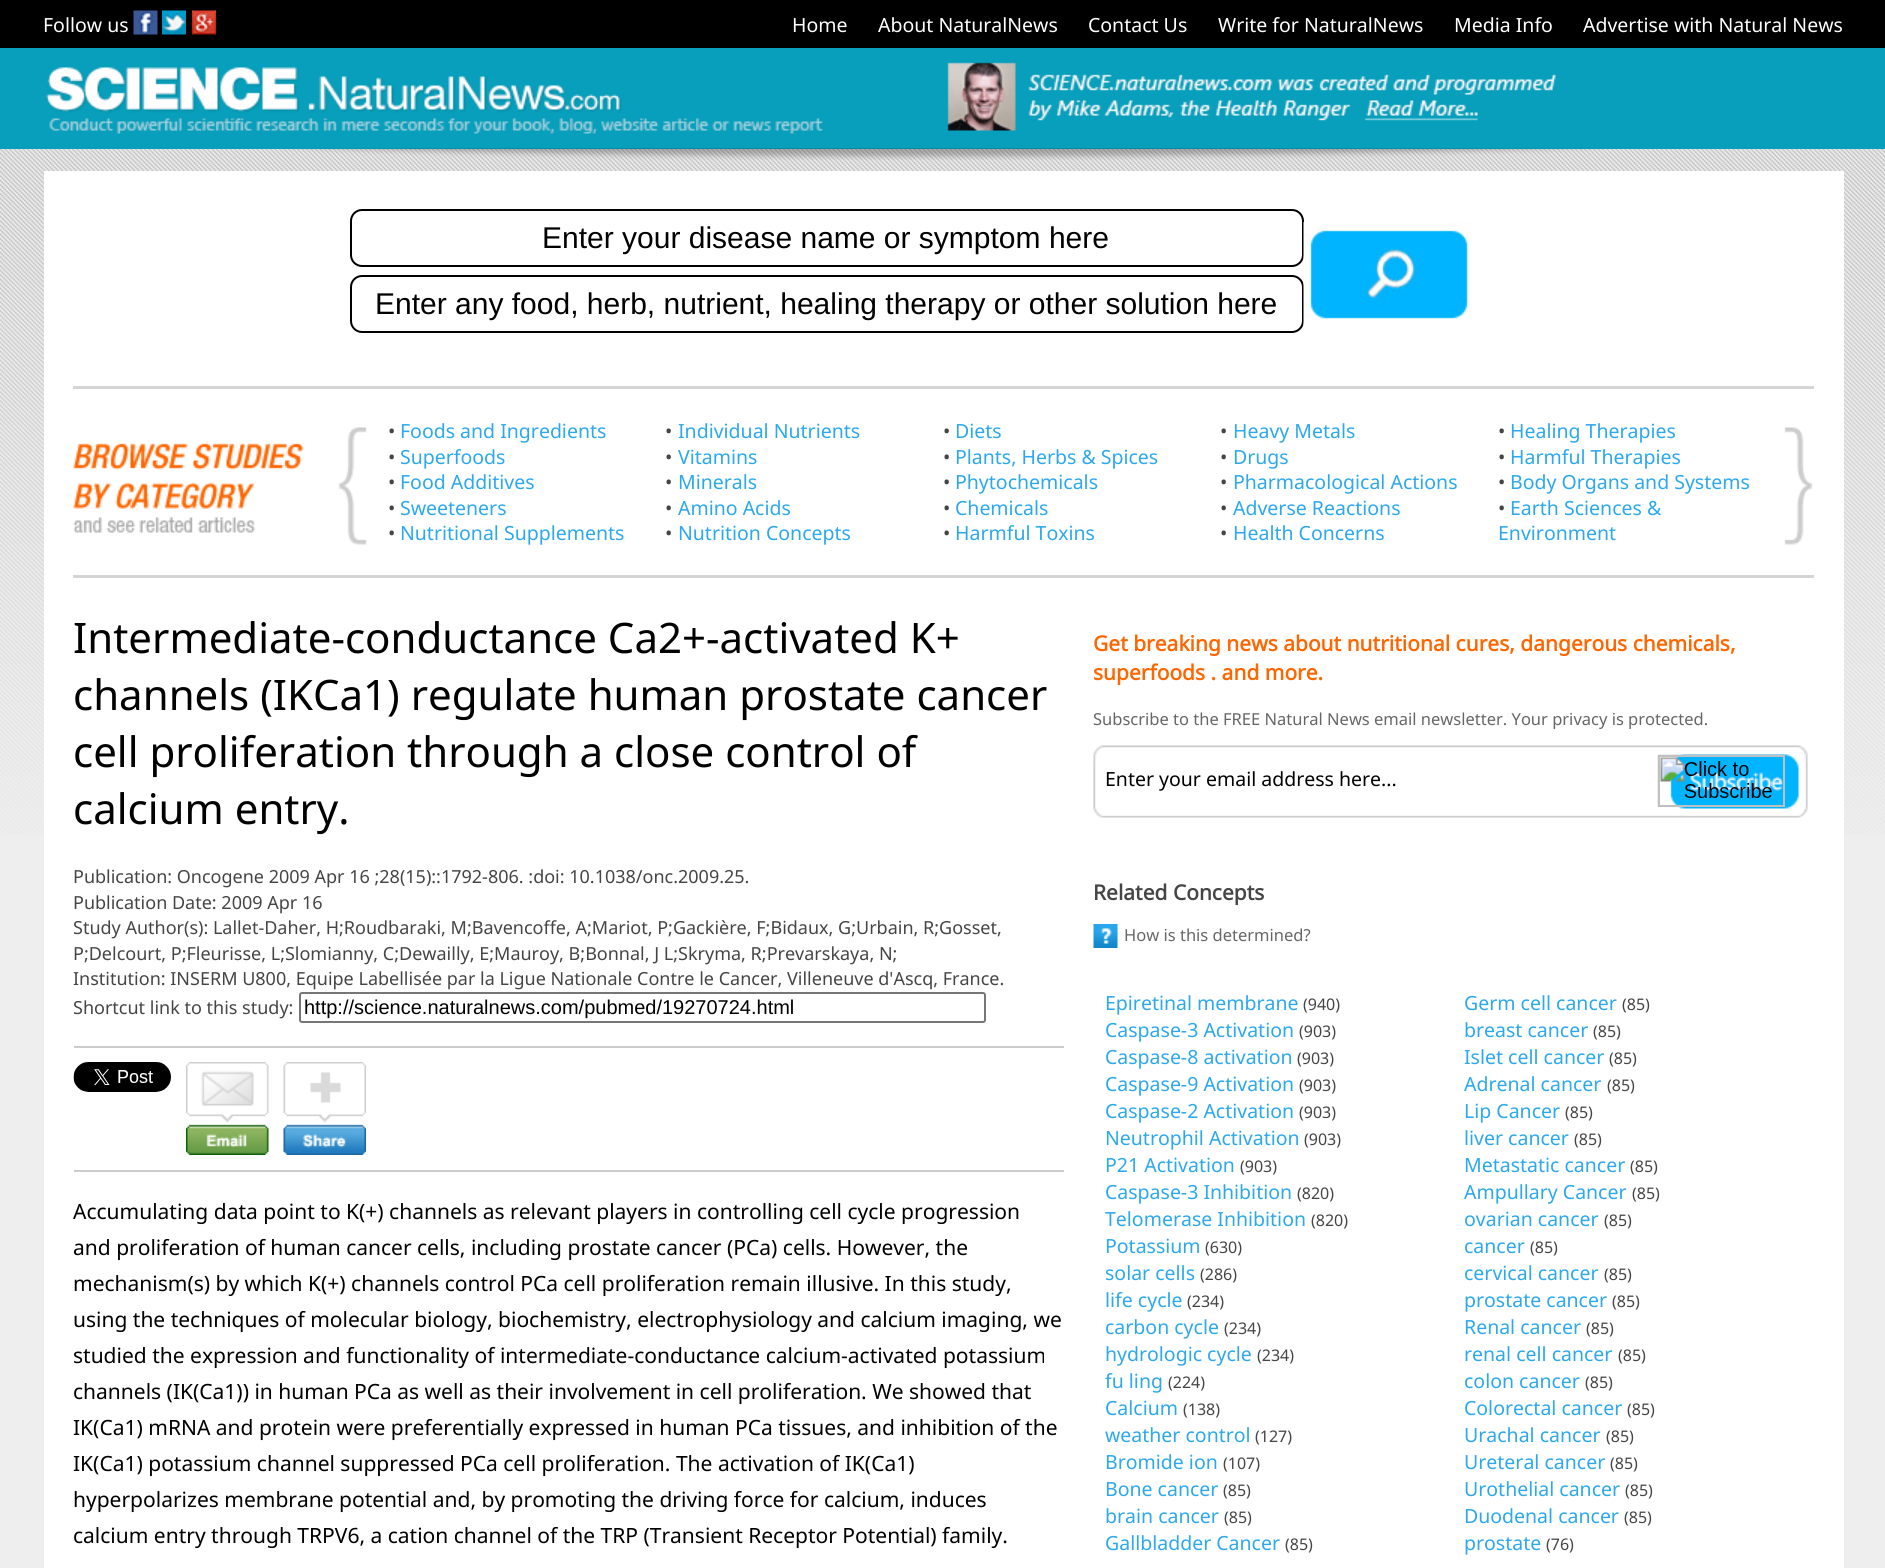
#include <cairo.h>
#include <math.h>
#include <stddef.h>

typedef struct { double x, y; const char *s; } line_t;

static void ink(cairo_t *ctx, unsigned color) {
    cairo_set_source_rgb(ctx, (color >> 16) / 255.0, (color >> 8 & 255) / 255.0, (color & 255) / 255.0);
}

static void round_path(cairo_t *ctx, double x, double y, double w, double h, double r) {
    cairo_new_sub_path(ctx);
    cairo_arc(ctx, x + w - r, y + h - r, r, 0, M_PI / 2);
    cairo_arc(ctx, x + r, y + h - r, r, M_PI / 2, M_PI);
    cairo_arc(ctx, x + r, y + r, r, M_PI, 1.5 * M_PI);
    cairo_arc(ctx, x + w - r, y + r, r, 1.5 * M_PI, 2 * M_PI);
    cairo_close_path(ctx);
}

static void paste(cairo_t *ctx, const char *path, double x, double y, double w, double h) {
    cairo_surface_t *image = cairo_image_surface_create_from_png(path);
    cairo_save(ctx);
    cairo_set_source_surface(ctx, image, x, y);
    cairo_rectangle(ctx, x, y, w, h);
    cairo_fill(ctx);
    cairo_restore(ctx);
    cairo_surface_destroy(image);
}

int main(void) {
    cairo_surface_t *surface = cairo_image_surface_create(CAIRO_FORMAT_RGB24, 1885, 1568);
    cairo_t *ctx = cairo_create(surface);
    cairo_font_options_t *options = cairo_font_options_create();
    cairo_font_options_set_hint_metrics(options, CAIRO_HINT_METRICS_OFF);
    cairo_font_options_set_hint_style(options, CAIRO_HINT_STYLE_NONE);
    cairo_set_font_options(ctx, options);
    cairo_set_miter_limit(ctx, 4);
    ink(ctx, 0xEEEEEE);
    cairo_paint(ctx);
    paste(ctx, "media/1.png", 0, 149, 1885, 686);
    ink(ctx, 0x000000);
    cairo_rectangle(ctx, 0, 0, 1885, 48);
    cairo_fill(ctx);
    cairo_select_font_face(ctx, "Noto Sans", CAIRO_FONT_SLANT_NORMAL, CAIRO_FONT_WEIGHT_NORMAL);
    cairo_set_font_size(ctx, 19.5);
    ink(ctx, 0xFFFFFF);
    cairo_move_to(ctx, 43, 32);
    cairo_show_text(ctx, "Follow us");
    paste(ctx, "media/2.png", 133, 10, 25, 25);
    paste(ctx, "media/3.png", 162, 10, 24, 25);
    paste(ctx, "media/4.png", 192, 10, 24, 25);
    {
        static const line_t items[] = {
            {792, 32, "Home"},
            {878, 32, "About NaturalNews"},
            {1088, 32, "Contact Us"},
            {1218, 32, "Write for NaturalNews"},
            {1454, 32, "Media Info"},
            {1583, 32, "Advertise with Natural News"},
        };
        for (size_t i = 0; i < sizeof items / sizeof *items; i++) {
            cairo_move_to(ctx, items[i].x, items[i].y);
            cairo_show_text(ctx, items[i].s);
        }
    }
    ink(ctx, 0x079FBB);
    cairo_rectangle(ctx, 0, 48, 1885, 101);
    cairo_fill(ctx);
    paste(ctx, "media/5.png", 46, 62, 1510, 72);
    paste(ctx, "media/6.png", 281, 148, 1322, 12);
    ink(ctx, 0xFFFFFF);
    cairo_rectangle(ctx, 44, 171, 1800, 1397);
    cairo_fill(ctx);
    round_path(ctx, 351, 210, 952, 56, 11);
    ink(ctx, 0x000000);
    cairo_stroke(ctx);
    cairo_select_font_face(ctx, "Liberation Sans", CAIRO_FONT_SLANT_NORMAL, CAIRO_FONT_WEIGHT_NORMAL);
    cairo_set_font_size(ctx, 30);
    cairo_move_to(ctx, 542, 248);
    cairo_show_text(ctx, "Enter your disease name or symptom here");
    round_path(ctx, 351, 276, 952, 56, 11);
    cairo_stroke(ctx);
    cairo_move_to(ctx, 375, 314);
    cairo_show_text(ctx, "Enter any food, herb, nutrient, healing therapy or other solution here");
    paste(ctx, "media/7.png", 1303, 222, 169, 104);
    ink(ctx, 0xD5D5D5);
    cairo_rectangle(ctx, 73, 386, 1741, 3);
    cairo_fill(ctx);
    paste(ctx, "media/8.png", 73, 427, 294, 118);
    cairo_select_font_face(ctx, "Noto Sans", CAIRO_FONT_SLANT_NORMAL, CAIRO_FONT_WEIGHT_NORMAL);
    cairo_set_font_size(ctx, 19.5);
    ink(ctx, 0x454545);
    cairo_move_to(ctx, 388, 438);
    cairo_show_text(ctx, "•");
    ink(ctx, 0x2BA8EE);
    cairo_move_to(ctx, 400, 438);
    cairo_show_text(ctx, "Foods and Ingredients");
    ink(ctx, 0x454545);
    cairo_move_to(ctx, 388, 464);
    cairo_show_text(ctx, "•");
    ink(ctx, 0x2BA8EE);
    cairo_move_to(ctx, 400, 464);
    cairo_show_text(ctx, "Superfoods");
    ink(ctx, 0x454545);
    cairo_move_to(ctx, 388, 489);
    cairo_show_text(ctx, "•");
    ink(ctx, 0x2BA8EE);
    cairo_move_to(ctx, 400, 489);
    cairo_show_text(ctx, "Food Additives");
    ink(ctx, 0x454545);
    cairo_move_to(ctx, 388, 515);
    cairo_show_text(ctx, "•");
    ink(ctx, 0x2BA8EE);
    cairo_move_to(ctx, 400, 515);
    cairo_show_text(ctx, "Sweeteners");
    ink(ctx, 0x454545);
    cairo_move_to(ctx, 388, 540);
    cairo_show_text(ctx, "•");
    ink(ctx, 0x2BA8EE);
    cairo_move_to(ctx, 400, 540);
    cairo_show_text(ctx, "Nutritional Supplements");
    ink(ctx, 0x454545);
    cairo_move_to(ctx, 665, 438);
    cairo_show_text(ctx, "•");
    ink(ctx, 0x2BA8EE);
    cairo_move_to(ctx, 678, 438);
    cairo_show_text(ctx, "Individual Nutrients");
    ink(ctx, 0x454545);
    cairo_move_to(ctx, 665, 464);
    cairo_show_text(ctx, "•");
    ink(ctx, 0x2BA8EE);
    cairo_move_to(ctx, 678, 464);
    cairo_show_text(ctx, "Vitamins");
    ink(ctx, 0x454545);
    cairo_move_to(ctx, 665, 489);
    cairo_show_text(ctx, "•");
    ink(ctx, 0x2BA8EE);
    cairo_move_to(ctx, 678, 489);
    cairo_show_text(ctx, "Minerals");
    ink(ctx, 0x454545);
    cairo_move_to(ctx, 665, 515);
    cairo_show_text(ctx, "•");
    ink(ctx, 0x2BA8EE);
    cairo_move_to(ctx, 678, 515);
    cairo_show_text(ctx, "Amino Acids");
    ink(ctx, 0x454545);
    cairo_move_to(ctx, 665, 540);
    cairo_show_text(ctx, "•");
    ink(ctx, 0x2BA8EE);
    cairo_move_to(ctx, 678, 540);
    cairo_show_text(ctx, "Nutrition Concepts");
    ink(ctx, 0x454545);
    cairo_move_to(ctx, 943, 438);
    cairo_show_text(ctx, "•");
    ink(ctx, 0x2BA8EE);
    cairo_move_to(ctx, 955, 438);
    cairo_show_text(ctx, "Diets");
    ink(ctx, 0x454545);
    cairo_move_to(ctx, 943, 464);
    cairo_show_text(ctx, "•");
    ink(ctx, 0x2BA8EE);
    cairo_move_to(ctx, 955, 464);
    cairo_show_text(ctx, "Plants, Herbs & Spices");
    ink(ctx, 0x454545);
    cairo_move_to(ctx, 943, 489);
    cairo_show_text(ctx, "•");
    ink(ctx, 0x2BA8EE);
    cairo_move_to(ctx, 955, 489);
    cairo_show_text(ctx, "Phytochemicals");
    ink(ctx, 0x454545);
    cairo_move_to(ctx, 943, 515);
    cairo_show_text(ctx, "•");
    ink(ctx, 0x2BA8EE);
    cairo_move_to(ctx, 955, 515);
    cairo_show_text(ctx, "Chemicals");
    ink(ctx, 0x454545);
    cairo_move_to(ctx, 943, 540);
    cairo_show_text(ctx, "•");
    ink(ctx, 0x2BA8EE);
    cairo_move_to(ctx, 955, 540);
    cairo_show_text(ctx, "Harmful Toxins");
    ink(ctx, 0x454545);
    cairo_move_to(ctx, 1220, 438);
    cairo_show_text(ctx, "•");
    ink(ctx, 0x2BA8EE);
    cairo_move_to(ctx, 1233, 438);
    cairo_show_text(ctx, "Heavy Metals");
    ink(ctx, 0x454545);
    cairo_move_to(ctx, 1220, 464);
    cairo_show_text(ctx, "•");
    ink(ctx, 0x2BA8EE);
    cairo_move_to(ctx, 1233, 464);
    cairo_show_text(ctx, "Drugs");
    ink(ctx, 0x454545);
    cairo_move_to(ctx, 1220, 489);
    cairo_show_text(ctx, "•");
    ink(ctx, 0x2BA8EE);
    cairo_move_to(ctx, 1233, 489);
    cairo_show_text(ctx, "Pharmacological Actions");
    ink(ctx, 0x454545);
    cairo_move_to(ctx, 1220, 515);
    cairo_show_text(ctx, "•");
    ink(ctx, 0x2BA8EE);
    cairo_move_to(ctx, 1233, 515);
    cairo_show_text(ctx, "Adverse Reactions");
    ink(ctx, 0x454545);
    cairo_move_to(ctx, 1220, 540);
    cairo_show_text(ctx, "•");
    ink(ctx, 0x2BA8EE);
    cairo_move_to(ctx, 1233, 540);
    cairo_show_text(ctx, "Health Concerns");
    ink(ctx, 0x454545);
    cairo_move_to(ctx, 1498, 438);
    cairo_show_text(ctx, "•");
    ink(ctx, 0x2BA8EE);
    cairo_move_to(ctx, 1510, 438);
    cairo_show_text(ctx, "Healing Therapies");
    ink(ctx, 0x454545);
    cairo_move_to(ctx, 1498, 464);
    cairo_show_text(ctx, "•");
    ink(ctx, 0x2BA8EE);
    cairo_move_to(ctx, 1510, 464);
    cairo_show_text(ctx, "Harmful Therapies");
    ink(ctx, 0x454545);
    cairo_move_to(ctx, 1498, 489);
    cairo_show_text(ctx, "•");
    ink(ctx, 0x2BA8EE);
    cairo_move_to(ctx, 1510, 489);
    cairo_show_text(ctx, "Body Organs and Systems");
    ink(ctx, 0x454545);
    cairo_move_to(ctx, 1498, 515);
    cairo_show_text(ctx, "•");
    ink(ctx, 0x2BA8EE);
    cairo_move_to(ctx, 1510, 515);
    cairo_show_text(ctx, "Earth Sciences &");
    cairo_move_to(ctx, 1498, 540);
    cairo_show_text(ctx, "Environment");
    paste(ctx, "media/9.png", 1784, 427, 29, 118);
    ink(ctx, 0xD5D5D5);
    cairo_rectangle(ctx, 73, 575, 1741, 3);
    cairo_fill(ctx);
    cairo_set_font_size(ctx, 42);
    ink(ctx, 0x000000);
    {
        static const line_t items[] = {
            {73, 653, "Intermediate-conductance Ca2+-activated K+"},
            {73, 710, "channels (IKCa1) regulate human prostate cancer"},
            {73, 767, "cell proliferation through a close control of"},
            {73, 824, "calcium entry."},
        };
        for (size_t i = 0; i < sizeof items / sizeof *items; i++) {
            cairo_move_to(ctx, items[i].x, items[i].y);
            cairo_show_text(ctx, items[i].s);
        }
    }
    cairo_set_font_size(ctx, 18);
    ink(ctx, 0x454545);
    {
        static const line_t items[] = {
            {73, 883, "Publication: Oncogene 2009 Apr 16 ;28(15)::1792-806. :doi: 10.1038/onc.2009.25."},
            {73, 909, "Publication Date: 2009 Apr 16"},
            {73, 934, "Study Author(s): Lallet-Daher, H;Roudbaraki, M;Bavencoffe, A;Mariot, P;Gackière, F;Bidaux, G;Urbain, R;Gosset,"},
            {73, 960, "P;Delcourt, P;Fleurisse, L;Slomianny, C;Dewailly, E;Mauroy, B;Bonnal, J L;Skryma, R;Prevarskaya, N;"},
            {73, 985, "Institution: INSERM U800, Equipe Labellisée par la Ligue Nationale Contre le Cancer, Villeneuve d'Ascq, France."},
            {73, 1014, "Shortcut link to this study:"},
        };
        for (size_t i = 0; i < sizeof items / sizeof *items; i++) {
            cairo_move_to(ctx, items[i].x, items[i].y);
            cairo_show_text(ctx, items[i].s);
        }
    }
    round_path(ctx, 300, 993, 685, 29, 2);
    ink(ctx, 0x767676);
    cairo_stroke(ctx);
    cairo_select_font_face(ctx, "Liberation Sans", CAIRO_FONT_SLANT_NORMAL, CAIRO_FONT_WEIGHT_NORMAL);
    cairo_set_font_size(ctx, 20);
    ink(ctx, 0x000000);
    cairo_move_to(ctx, 304, 1014);
    cairo_show_text(ctx, "http://science.naturalnews.com/pubmed/19270724.html");
    ink(ctx, 0xCCCCCC);
    cairo_rectangle(ctx, 74, 1046, 990, 2);
    cairo_fill(ctx);
    cairo_rectangle(ctx, 74, 1170, 990, 2);
    cairo_fill(ctx);
    paste(ctx, "media/10.png", 73, 1062, 98, 30);
    paste(ctx, "media/11.png", 186, 1062, 83, 93);
    paste(ctx, "media/12.png", 283, 1062, 83, 93);
    cairo_select_font_face(ctx, "Noto Sans", CAIRO_FONT_SLANT_NORMAL, CAIRO_FONT_WEIGHT_NORMAL);
    cairo_set_font_size(ctx, 21);
    ink(ctx, 0x000000);
    {
        static const line_t items[] = {
            {73, 1219, "Accumulating data point to K(+) channels as relevant players in controlling cell cycle progression"},
            {73, 1255, "and proliferation of human cancer cells, including prostate cancer (PCa) cells. However, the"},
            {73, 1291, "mechanism(s) by which K(+) channels control PCa cell proliferation remain illusive. In this study,"},
            {73, 1327, "using the techniques of molecular biology, biochemistry, electrophysiology and calcium imaging, we"},
            {73, 1363, "studied the expression and functionality of intermediate-conductance calcium-activated potassium"},
            {73, 1399, "channels (IK(Ca1)) in human PCa as well as their involvement in cell proliferation. We showed that"},
            {73, 1435, "IK(Ca1) mRNA and protein were preferentially expressed in human PCa tissues, and inhibition of the"},
            {73, 1471, "IK(Ca1) potassium channel suppressed PCa cell proliferation. The activation of IK(Ca1)"},
            {73, 1507, "hyperpolarizes membrane potential and, by promoting the driving force for calcium, induces"},
            {73, 1543, "calcium entry through TRPV6, a cation channel of the TRP (Transient Receptor Potential) family."},
        };
        for (size_t i = 0; i < sizeof items / sizeof *items; i++) {
            cairo_move_to(ctx, items[i].x, items[i].y);
            cairo_show_text(ctx, items[i].s);
        }
    }
    cairo_select_font_face(ctx, "Noto Sans", CAIRO_FONT_SLANT_NORMAL, CAIRO_FONT_WEIGHT_BOLD);
    ink(ctx, 0xFF6600);
    cairo_move_to(ctx, 1093, 651);
    cairo_show_text(ctx, "Get breaking news about nutritional cures, dangerous chemicals,");
    cairo_move_to(ctx, 1093, 680);
    cairo_show_text(ctx, "superfoods . and more.");
    cairo_select_font_face(ctx, "Noto Sans", CAIRO_FONT_SLANT_NORMAL, CAIRO_FONT_WEIGHT_NORMAL);
    cairo_set_font_size(ctx, 16.5);
    ink(ctx, 0x666666);
    cairo_move_to(ctx, 1093, 725);
    cairo_show_text(ctx, "Subscribe to the FREE Natural News email newsletter. Your privacy is protected.");
    paste(ctx, "media/13.png", 1093, 745, 715, 73);
    cairo_set_font_size(ctx, 19.5);
    ink(ctx, 0x000000);
    cairo_move_to(ctx, 1105, 786);
    cairo_show_text(ctx, "Enter your email address here...");
    paste(ctx, "media/14.png", 1657, 754, 128, 53);
    cairo_rectangle(ctx, 1659, 756, 125, 50);
    ink(ctx, 0xC0C0C0);
    cairo_stroke(ctx);
    cairo_select_font_face(ctx, "Noto Sans", CAIRO_FONT_SLANT_NORMAL, CAIRO_FONT_WEIGHT_BOLD);
    cairo_set_font_size(ctx, 21);
    ink(ctx, 0x454545);
    cairo_move_to(ctx, 1093, 900);
    cairo_show_text(ctx, "Related Concepts");
    paste(ctx, "media/15.png", 1093, 924, 25, 24);
    cairo_select_font_face(ctx, "Noto Sans", CAIRO_FONT_SLANT_NORMAL, CAIRO_FONT_WEIGHT_NORMAL);
    cairo_set_font_size(ctx, 16.5);
    ink(ctx, 0x666666);
    cairo_move_to(ctx, 1124, 941);
    cairo_show_text(ctx, "How is this determined?");
    cairo_set_font_size(ctx, 19.5);
    ink(ctx, 0x2BA8EE);
    cairo_move_to(ctx, 1105, 1010);
    cairo_show_text(ctx, "Epiretinal membrane");
    cairo_set_font_size(ctx, 16);
    ink(ctx, 0x454545);
    cairo_move_to(ctx, 1303, 1010);
    cairo_show_text(ctx, "(940)");
    cairo_set_font_size(ctx, 19.5);
    ink(ctx, 0x2BA8EE);
    cairo_move_to(ctx, 1105, 1037);
    cairo_show_text(ctx, "Caspase-3 Activation");
    cairo_set_font_size(ctx, 16);
    ink(ctx, 0x454545);
    cairo_move_to(ctx, 1299, 1037);
    cairo_show_text(ctx, "(903)");
    cairo_set_font_size(ctx, 19.5);
    ink(ctx, 0x2BA8EE);
    cairo_move_to(ctx, 1105, 1064);
    cairo_show_text(ctx, "Caspase-8 activation");
    cairo_set_font_size(ctx, 16);
    ink(ctx, 0x454545);
    cairo_move_to(ctx, 1297, 1064);
    cairo_show_text(ctx, "(903)");
    cairo_set_font_size(ctx, 19.5);
    ink(ctx, 0x2BA8EE);
    cairo_move_to(ctx, 1105, 1091);
    cairo_show_text(ctx, "Caspase-9 Activation");
    cairo_set_font_size(ctx, 16);
    ink(ctx, 0x454545);
    cairo_move_to(ctx, 1299, 1091);
    cairo_show_text(ctx, "(903)");
    cairo_set_font_size(ctx, 19.5);
    ink(ctx, 0x2BA8EE);
    cairo_move_to(ctx, 1105, 1118);
    cairo_show_text(ctx, "Caspase-2 Activation");
    cairo_set_font_size(ctx, 16);
    ink(ctx, 0x454545);
    cairo_move_to(ctx, 1299, 1118);
    cairo_show_text(ctx, "(903)");
    cairo_set_font_size(ctx, 19.5);
    ink(ctx, 0x2BA8EE);
    cairo_move_to(ctx, 1105, 1145);
    cairo_show_text(ctx, "Neutrophil Activation");
    cairo_set_font_size(ctx, 16);
    ink(ctx, 0x454545);
    cairo_move_to(ctx, 1304, 1145);
    cairo_show_text(ctx, "(903)");
    cairo_set_font_size(ctx, 19.5);
    ink(ctx, 0x2BA8EE);
    cairo_move_to(ctx, 1105, 1172);
    cairo_show_text(ctx, "P21 Activation");
    cairo_set_font_size(ctx, 16);
    ink(ctx, 0x454545);
    cairo_move_to(ctx, 1240, 1172);
    cairo_show_text(ctx, "(903)");
    cairo_set_font_size(ctx, 19.5);
    ink(ctx, 0x2BA8EE);
    cairo_move_to(ctx, 1105, 1199);
    cairo_show_text(ctx, "Caspase-3 Inhibition");
    cairo_set_font_size(ctx, 16);
    ink(ctx, 0x454545);
    cairo_move_to(ctx, 1297, 1199);
    cairo_show_text(ctx, "(820)");
    cairo_set_font_size(ctx, 19.5);
    ink(ctx, 0x2BA8EE);
    cairo_move_to(ctx, 1105, 1226);
    cairo_show_text(ctx, "Telomerase Inhibition");
    cairo_set_font_size(ctx, 16);
    ink(ctx, 0x454545);
    cairo_move_to(ctx, 1311, 1226);
    cairo_show_text(ctx, "(820)");
    cairo_set_font_size(ctx, 19.5);
    ink(ctx, 0x2BA8EE);
    cairo_move_to(ctx, 1105, 1253);
    cairo_show_text(ctx, "Potassium");
    cairo_set_font_size(ctx, 16);
    ink(ctx, 0x454545);
    cairo_move_to(ctx, 1205, 1253);
    cairo_show_text(ctx, "(630)");
    cairo_set_font_size(ctx, 19.5);
    ink(ctx, 0x2BA8EE);
    cairo_move_to(ctx, 1105, 1280);
    cairo_show_text(ctx, "solar cells");
    cairo_set_font_size(ctx, 16);
    ink(ctx, 0x454545);
    cairo_move_to(ctx, 1200, 1280);
    cairo_show_text(ctx, "(286)");
    cairo_set_font_size(ctx, 19.5);
    ink(ctx, 0x2BA8EE);
    cairo_move_to(ctx, 1105, 1307);
    cairo_show_text(ctx, "life cycle");
    cairo_set_font_size(ctx, 16);
    ink(ctx, 0x454545);
    cairo_move_to(ctx, 1187, 1307);
    cairo_show_text(ctx, "(234)");
    cairo_set_font_size(ctx, 19.5);
    ink(ctx, 0x2BA8EE);
    cairo_move_to(ctx, 1105, 1334);
    cairo_show_text(ctx, "carbon cycle");
    cairo_set_font_size(ctx, 16);
    ink(ctx, 0x454545);
    cairo_move_to(ctx, 1224, 1334);
    cairo_show_text(ctx, "(234)");
    cairo_set_font_size(ctx, 19.5);
    ink(ctx, 0x2BA8EE);
    cairo_move_to(ctx, 1105, 1361);
    cairo_show_text(ctx, "hydrologic cycle");
    cairo_set_font_size(ctx, 16);
    ink(ctx, 0x454545);
    cairo_move_to(ctx, 1257, 1361);
    cairo_show_text(ctx, "(234)");
    cairo_set_font_size(ctx, 19.5);
    ink(ctx, 0x2BA8EE);
    cairo_move_to(ctx, 1105, 1388);
    cairo_show_text(ctx, "fu ling");
    cairo_set_font_size(ctx, 16);
    ink(ctx, 0x454545);
    cairo_move_to(ctx, 1168, 1388);
    cairo_show_text(ctx, "(224)");
    cairo_set_font_size(ctx, 19.5);
    ink(ctx, 0x2BA8EE);
    cairo_move_to(ctx, 1105, 1415);
    cairo_show_text(ctx, "Calcium");
    cairo_set_font_size(ctx, 16);
    ink(ctx, 0x454545);
    cairo_move_to(ctx, 1183, 1415);
    cairo_show_text(ctx, "(138)");
    cairo_set_font_size(ctx, 19.5);
    ink(ctx, 0x2BA8EE);
    cairo_move_to(ctx, 1105, 1442);
    cairo_show_text(ctx, "weather control");
    cairo_set_font_size(ctx, 16);
    ink(ctx, 0x454545);
    cairo_move_to(ctx, 1255, 1442);
    cairo_show_text(ctx, "(127)");
    cairo_set_font_size(ctx, 19.5);
    ink(ctx, 0x2BA8EE);
    cairo_move_to(ctx, 1105, 1469);
    cairo_show_text(ctx, "Bromide ion");
    cairo_set_font_size(ctx, 16);
    ink(ctx, 0x454545);
    cairo_move_to(ctx, 1223, 1469);
    cairo_show_text(ctx, "(107)");
    cairo_set_font_size(ctx, 19.5);
    ink(ctx, 0x2BA8EE);
    cairo_move_to(ctx, 1105, 1496);
    cairo_show_text(ctx, "Bone cancer");
    cairo_set_font_size(ctx, 16);
    ink(ctx, 0x454545);
    cairo_move_to(ctx, 1223, 1496);
    cairo_show_text(ctx, "(85)");
    cairo_set_font_size(ctx, 19.5);
    ink(ctx, 0x2BA8EE);
    cairo_move_to(ctx, 1105, 1523);
    cairo_show_text(ctx, "brain cancer");
    cairo_set_font_size(ctx, 16);
    ink(ctx, 0x454545);
    cairo_move_to(ctx, 1224, 1523);
    cairo_show_text(ctx, "(85)");
    cairo_set_font_size(ctx, 19.5);
    ink(ctx, 0x2BA8EE);
    cairo_move_to(ctx, 1105, 1550);
    cairo_show_text(ctx, "Gallbladder Cancer");
    cairo_set_font_size(ctx, 16);
    ink(ctx, 0x454545);
    cairo_move_to(ctx, 1285, 1550);
    cairo_show_text(ctx, "(85)");
    cairo_set_font_size(ctx, 19.5);
    ink(ctx, 0x2BA8EE);
    cairo_move_to(ctx, 1464, 1010);
    cairo_show_text(ctx, "Germ cell cancer");
    cairo_set_font_size(ctx, 16);
    ink(ctx, 0x454545);
    cairo_move_to(ctx, 1622, 1010);
    cairo_show_text(ctx, "(85)");
    cairo_set_font_size(ctx, 19.5);
    ink(ctx, 0x2BA8EE);
    cairo_move_to(ctx, 1464, 1037);
    cairo_show_text(ctx, "breast cancer");
    cairo_set_font_size(ctx, 16);
    ink(ctx, 0x454545);
    cairo_move_to(ctx, 1593, 1037);
    cairo_show_text(ctx, "(85)");
    cairo_set_font_size(ctx, 19.5);
    ink(ctx, 0x2BA8EE);
    cairo_move_to(ctx, 1464, 1064);
    cairo_show_text(ctx, "Islet cell cancer");
    cairo_set_font_size(ctx, 16);
    ink(ctx, 0x454545);
    cairo_move_to(ctx, 1609, 1064);
    cairo_show_text(ctx, "(85)");
    cairo_set_font_size(ctx, 19.5);
    ink(ctx, 0x2BA8EE);
    cairo_move_to(ctx, 1464, 1091);
    cairo_show_text(ctx, "Adrenal cancer");
    cairo_set_font_size(ctx, 16);
    ink(ctx, 0x454545);
    cairo_move_to(ctx, 1607, 1091);
    cairo_show_text(ctx, "(85)");
    cairo_set_font_size(ctx, 19.5);
    ink(ctx, 0x2BA8EE);
    cairo_move_to(ctx, 1464, 1118);
    cairo_show_text(ctx, "Lip Cancer");
    cairo_set_font_size(ctx, 16);
    ink(ctx, 0x454545);
    cairo_move_to(ctx, 1565, 1118);
    cairo_show_text(ctx, "(85)");
    cairo_set_font_size(ctx, 19.5);
    ink(ctx, 0x2BA8EE);
    cairo_move_to(ctx, 1464, 1145);
    cairo_show_text(ctx, "liver cancer");
    cairo_set_font_size(ctx, 16);
    ink(ctx, 0x454545);
    cairo_move_to(ctx, 1574, 1145);
    cairo_show_text(ctx, "(85)");
    cairo_set_font_size(ctx, 19.5);
    ink(ctx, 0x2BA8EE);
    cairo_move_to(ctx, 1464, 1172);
    cairo_show_text(ctx, "Metastatic cancer");
    cairo_set_font_size(ctx, 16);
    ink(ctx, 0x454545);
    cairo_move_to(ctx, 1630, 1172);
    cairo_show_text(ctx, "(85)");
    cairo_set_font_size(ctx, 19.5);
    ink(ctx, 0x2BA8EE);
    cairo_move_to(ctx, 1464, 1199);
    cairo_show_text(ctx, "Ampullary Cancer");
    cairo_set_font_size(ctx, 16);
    ink(ctx, 0x454545);
    cairo_move_to(ctx, 1632, 1199);
    cairo_show_text(ctx, "(85)");
    cairo_set_font_size(ctx, 19.5);
    ink(ctx, 0x2BA8EE);
    cairo_move_to(ctx, 1464, 1226);
    cairo_show_text(ctx, "ovarian cancer");
    cairo_set_font_size(ctx, 16);
    ink(ctx, 0x454545);
    cairo_move_to(ctx, 1604, 1226);
    cairo_show_text(ctx, "(85)");
    cairo_set_font_size(ctx, 19.5);
    ink(ctx, 0x2BA8EE);
    cairo_move_to(ctx, 1464, 1253);
    cairo_show_text(ctx, "cancer");
    cairo_set_font_size(ctx, 16);
    ink(ctx, 0x454545);
    cairo_move_to(ctx, 1530, 1253);
    cairo_show_text(ctx, "(85)");
    cairo_set_font_size(ctx, 19.5);
    ink(ctx, 0x2BA8EE);
    cairo_move_to(ctx, 1464, 1280);
    cairo_show_text(ctx, "cervical cancer");
    cairo_set_font_size(ctx, 16);
    ink(ctx, 0x454545);
    cairo_move_to(ctx, 1604, 1280);
    cairo_show_text(ctx, "(85)");
    cairo_set_font_size(ctx, 19.5);
    ink(ctx, 0x2BA8EE);
    cairo_move_to(ctx, 1464, 1307);
    cairo_show_text(ctx, "prostate cancer");
    cairo_set_font_size(ctx, 16);
    ink(ctx, 0x454545);
    cairo_move_to(ctx, 1612, 1307);
    cairo_show_text(ctx, "(85)");
    cairo_set_font_size(ctx, 19.5);
    ink(ctx, 0x2BA8EE);
    cairo_move_to(ctx, 1464, 1334);
    cairo_show_text(ctx, "Renal cancer");
    cairo_set_font_size(ctx, 16);
    ink(ctx, 0x454545);
    cairo_move_to(ctx, 1586, 1334);
    cairo_show_text(ctx, "(85)");
    cairo_set_font_size(ctx, 19.5);
    ink(ctx, 0x2BA8EE);
    cairo_move_to(ctx, 1464, 1361);
    cairo_show_text(ctx, "renal cell cancer");
    cairo_set_font_size(ctx, 16);
    ink(ctx, 0x454545);
    cairo_move_to(ctx, 1618, 1361);
    cairo_show_text(ctx, "(85)");
    cairo_set_font_size(ctx, 19.5);
    ink(ctx, 0x2BA8EE);
    cairo_move_to(ctx, 1464, 1388);
    cairo_show_text(ctx, "colon cancer");
    cairo_set_font_size(ctx, 16);
    ink(ctx, 0x454545);
    cairo_move_to(ctx, 1585, 1388);
    cairo_show_text(ctx, "(85)");
    cairo_set_font_size(ctx, 19.5);
    ink(ctx, 0x2BA8EE);
    cairo_move_to(ctx, 1464, 1415);
    cairo_show_text(ctx, "Colorectal cancer");
    cairo_set_font_size(ctx, 16);
    ink(ctx, 0x454545);
    cairo_move_to(ctx, 1627, 1415);
    cairo_show_text(ctx, "(85)");
    cairo_set_font_size(ctx, 19.5);
    ink(ctx, 0x2BA8EE);
    cairo_move_to(ctx, 1464, 1442);
    cairo_show_text(ctx, "Urachal cancer");
    cairo_set_font_size(ctx, 16);
    ink(ctx, 0x454545);
    cairo_move_to(ctx, 1606, 1442);
    cairo_show_text(ctx, "(85)");
    cairo_set_font_size(ctx, 19.5);
    ink(ctx, 0x2BA8EE);
    cairo_move_to(ctx, 1464, 1469);
    cairo_show_text(ctx, "Ureteral cancer");
    cairo_set_font_size(ctx, 16);
    ink(ctx, 0x454545);
    cairo_move_to(ctx, 1610, 1469);
    cairo_show_text(ctx, "(85)");
    cairo_set_font_size(ctx, 19.5);
    ink(ctx, 0x2BA8EE);
    cairo_move_to(ctx, 1464, 1496);
    cairo_show_text(ctx, "Urothelial cancer");
    cairo_set_font_size(ctx, 16);
    ink(ctx, 0x454545);
    cairo_move_to(ctx, 1625, 1496);
    cairo_show_text(ctx, "(85)");
    cairo_set_font_size(ctx, 19.5);
    ink(ctx, 0x2BA8EE);
    cairo_move_to(ctx, 1464, 1523);
    cairo_show_text(ctx, "Duodenal cancer");
    cairo_set_font_size(ctx, 16);
    ink(ctx, 0x454545);
    cairo_move_to(ctx, 1624, 1523);
    cairo_show_text(ctx, "(85)");
    cairo_set_font_size(ctx, 19.5);
    ink(ctx, 0x2BA8EE);
    cairo_move_to(ctx, 1464, 1550);
    cairo_show_text(ctx, "prostate");
    cairo_set_font_size(ctx, 16);
    ink(ctx, 0x454545);
    cairo_move_to(ctx, 1546, 1550);
    cairo_show_text(ctx, "(76)");
    cairo_surface_write_to_png(surface, "image.png");
    cairo_font_options_destroy(options);
    cairo_destroy(ctx);
    cairo_surface_destroy(surface);
    return 0;
}
